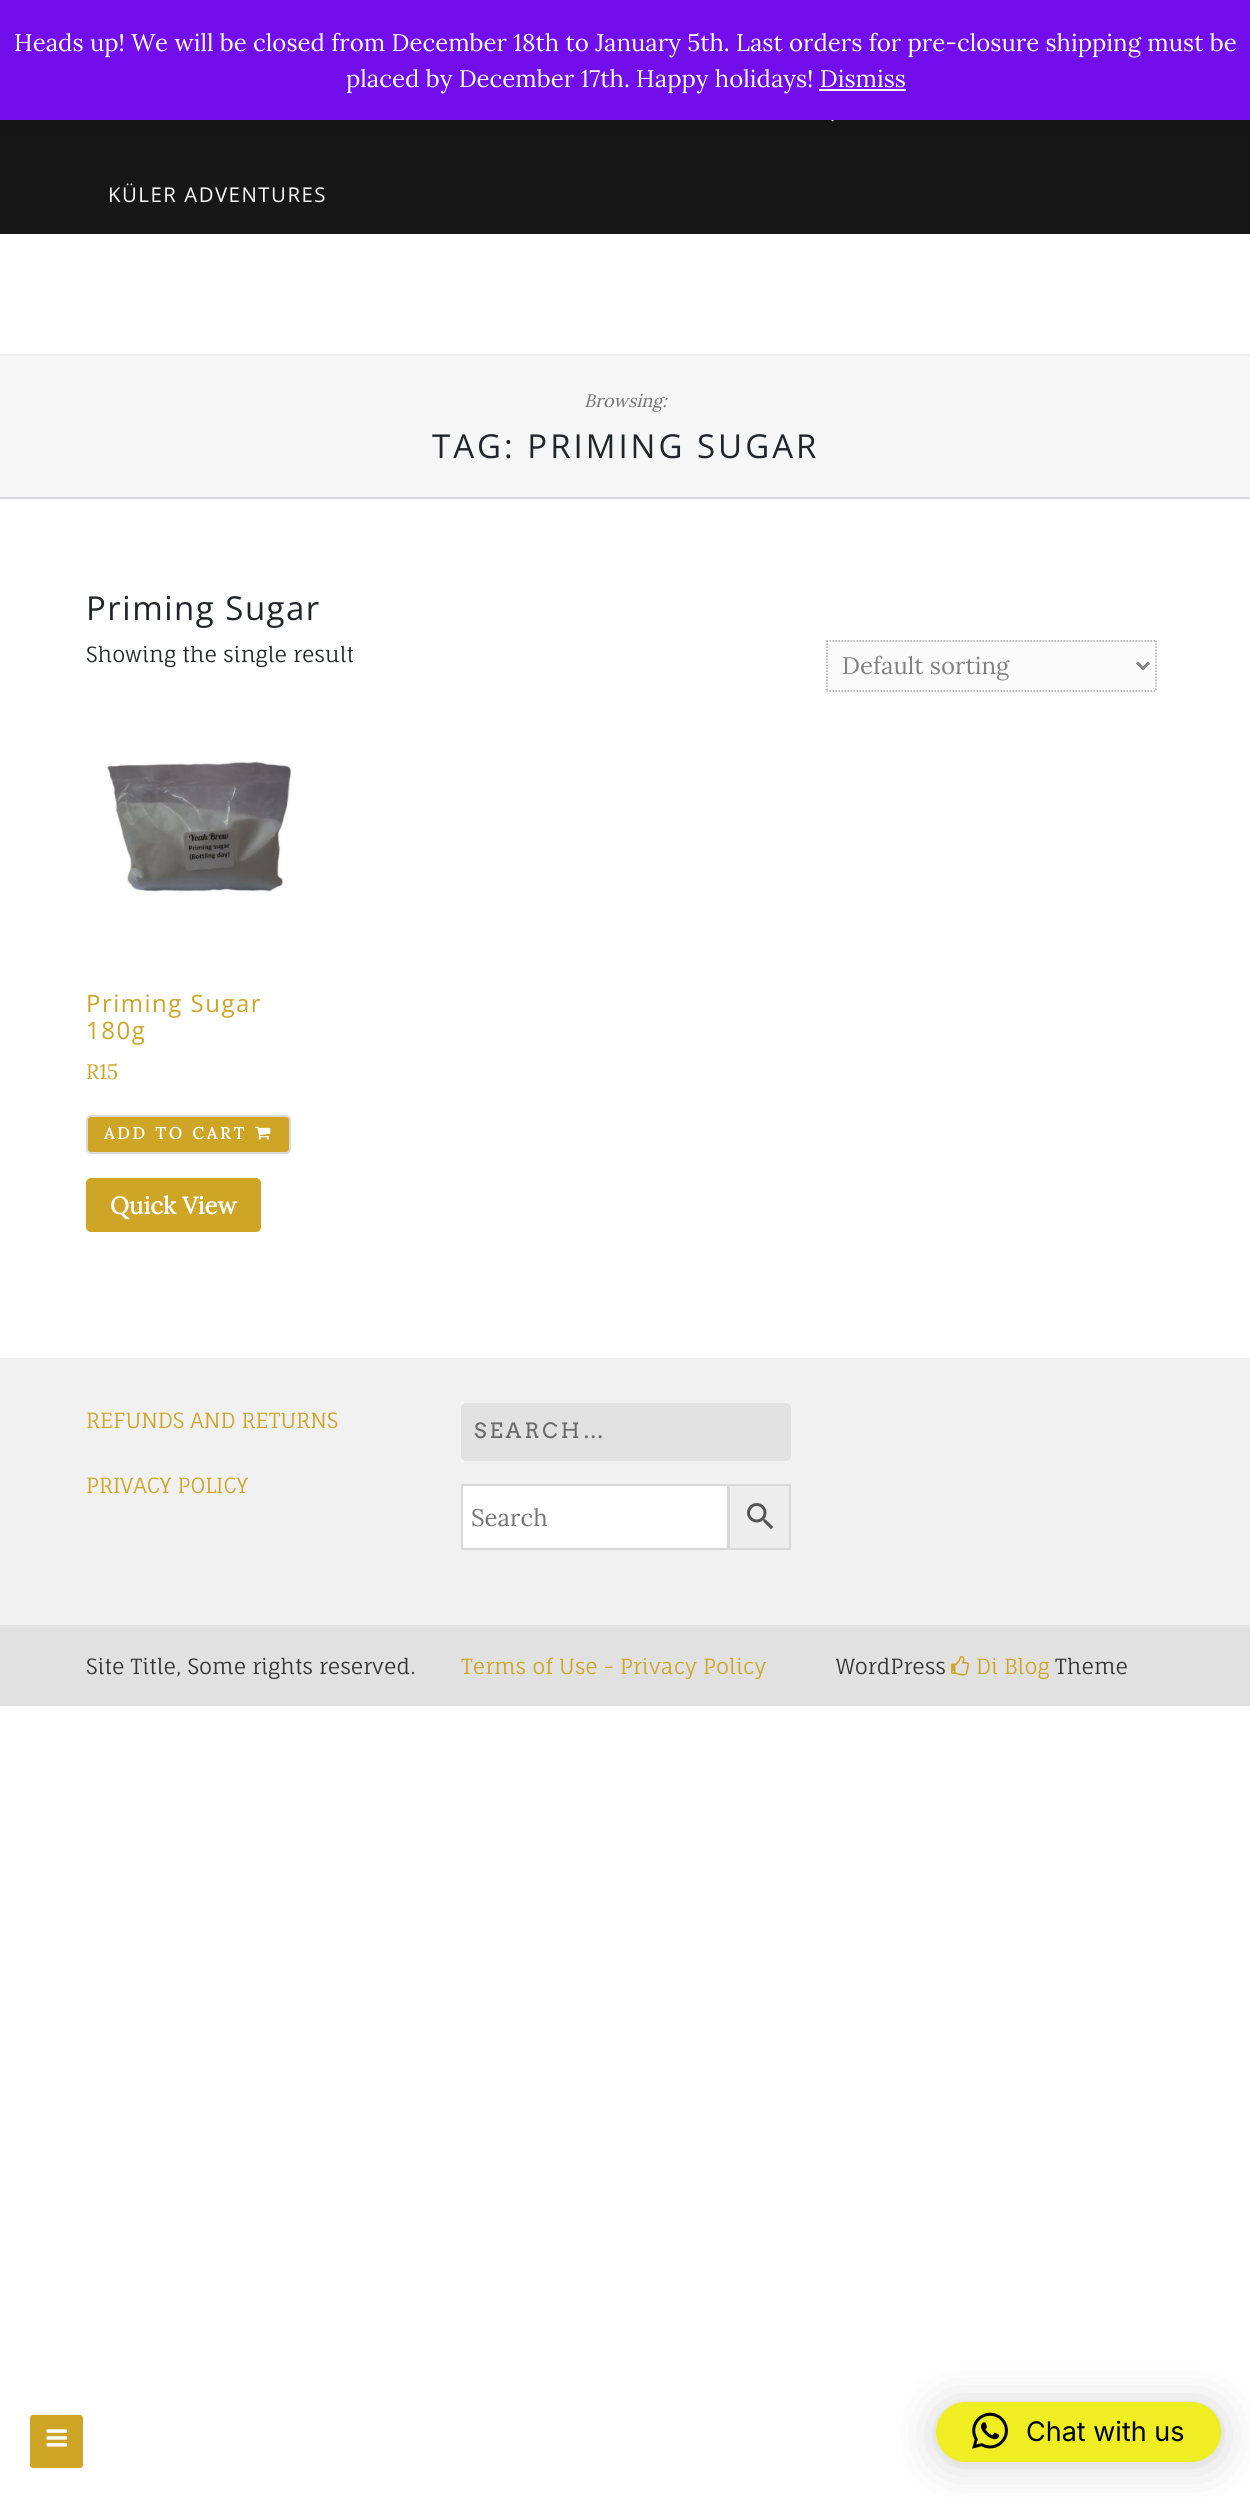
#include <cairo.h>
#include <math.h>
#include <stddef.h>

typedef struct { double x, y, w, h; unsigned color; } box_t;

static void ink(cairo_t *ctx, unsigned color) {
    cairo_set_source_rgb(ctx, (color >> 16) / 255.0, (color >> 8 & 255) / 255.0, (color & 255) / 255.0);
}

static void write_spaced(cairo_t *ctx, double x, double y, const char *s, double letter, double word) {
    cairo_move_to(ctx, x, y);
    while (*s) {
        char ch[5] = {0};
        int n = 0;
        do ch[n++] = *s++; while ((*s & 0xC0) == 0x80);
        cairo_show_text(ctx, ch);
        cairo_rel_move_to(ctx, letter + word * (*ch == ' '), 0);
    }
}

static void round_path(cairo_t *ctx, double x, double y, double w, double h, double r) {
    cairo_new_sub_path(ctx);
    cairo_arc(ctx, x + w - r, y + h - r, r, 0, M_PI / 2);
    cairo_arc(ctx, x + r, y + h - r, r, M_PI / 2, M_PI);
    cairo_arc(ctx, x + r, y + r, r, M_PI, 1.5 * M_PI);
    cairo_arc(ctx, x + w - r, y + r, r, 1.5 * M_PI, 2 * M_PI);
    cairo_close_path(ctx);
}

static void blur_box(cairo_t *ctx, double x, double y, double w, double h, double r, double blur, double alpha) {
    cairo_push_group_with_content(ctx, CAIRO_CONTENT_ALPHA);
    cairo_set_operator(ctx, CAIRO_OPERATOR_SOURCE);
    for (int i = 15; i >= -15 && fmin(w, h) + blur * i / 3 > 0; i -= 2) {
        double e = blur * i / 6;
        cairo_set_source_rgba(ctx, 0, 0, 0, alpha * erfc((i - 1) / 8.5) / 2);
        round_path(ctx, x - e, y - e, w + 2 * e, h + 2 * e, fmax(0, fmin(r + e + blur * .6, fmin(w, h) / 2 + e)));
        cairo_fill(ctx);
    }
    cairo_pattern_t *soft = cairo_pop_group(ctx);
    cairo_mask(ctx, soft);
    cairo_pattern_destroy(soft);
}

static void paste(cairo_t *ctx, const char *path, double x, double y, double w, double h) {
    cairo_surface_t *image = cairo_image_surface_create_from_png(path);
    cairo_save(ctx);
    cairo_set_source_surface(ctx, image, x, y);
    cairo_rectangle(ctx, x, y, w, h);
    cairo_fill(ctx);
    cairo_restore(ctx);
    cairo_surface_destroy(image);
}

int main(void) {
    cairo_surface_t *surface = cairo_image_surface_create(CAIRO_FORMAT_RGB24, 1250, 2497);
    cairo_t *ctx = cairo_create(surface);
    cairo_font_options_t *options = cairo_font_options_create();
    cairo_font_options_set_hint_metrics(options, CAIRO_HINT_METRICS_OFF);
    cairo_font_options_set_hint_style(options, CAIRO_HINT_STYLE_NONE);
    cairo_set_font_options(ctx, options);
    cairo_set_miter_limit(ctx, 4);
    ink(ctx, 0xFFFFFF);
    cairo_paint(ctx);
    ink(ctx, 0x171717);
    cairo_rectangle(ctx, 0, 120, 1250, 114);
    cairo_fill(ctx);
    ink(ctx, 0xFFFFFF);
    cairo_new_path(ctx);
    cairo_move_to(ctx, 826.5, 115.5);
    cairo_line_to(ctx, 838.5, 115.5);
    cairo_line_to(ctx, 832.5, 121.5);
    cairo_close_path(ctx);
    cairo_fill(ctx);
    ink(ctx, 0x000000);
    blur_box(ctx, 0, 2, 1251, 120, 0, 12, 0.2);
    ink(ctx, 0x720EEC);
    cairo_rectangle(ctx, 0, 0, 1250, 120);
    cairo_fill(ctx);
    cairo_select_font_face(ctx, "Lora", CAIRO_FONT_SLANT_NORMAL, CAIRO_FONT_WEIGHT_NORMAL);
    cairo_set_font_size(ctx, 24);
    ink(ctx, 0xFFFFFF);
    cairo_move_to(ctx, 14, 51);
    cairo_show_text(ctx, "Heads up! We will be closed from December 18th to January 5th. Last orders for pre-closure shipping must be");
    cairo_move_to(ctx, 346, 87);
    cairo_show_text(ctx, "placed by December 17th. Happy holidays! Dismiss");
    ink(ctx, 0xFCFBFE);
    cairo_rectangle(ctx, 819, 89, 87, 2);
    cairo_fill(ctx);
    cairo_select_font_face(ctx, "Open Sans", CAIRO_FONT_SLANT_NORMAL, CAIRO_FONT_WEIGHT_NORMAL);
    cairo_set_font_size(ctx, 20.4);
    ink(ctx, 0xFFFFFF);
    write_spaced(ctx, 108, 202, "KÜLER ADVENTURES", 1.5, 0);
    {
        static const box_t items[] = {
            {0, 354, 1250, 2, 0xEEEEEE},
            {0, 356, 1250, 141, 0xF6F6F6},
            {0, 497, 1250, 2, 0xD7D7E0},
        };
        for (size_t i = 0; i < sizeof items / sizeof *items; i++) {
            ink(ctx, items[i].color);
            cairo_rectangle(ctx, items[i].x, items[i].y, items[i].w, items[i].h);
            cairo_fill(ctx);
        }
    }
    cairo_select_font_face(ctx, "Lora", CAIRO_FONT_SLANT_ITALIC, CAIRO_FONT_WEIGHT_NORMAL);
    cairo_set_font_size(ctx, 18);
    ink(ctx, 0x767676);
    cairo_move_to(ctx, 584, 407);
    cairo_show_text(ctx, "Browsing:");
    cairo_select_font_face(ctx, "Open Sans", CAIRO_FONT_SLANT_NORMAL, CAIRO_FONT_WEIGHT_NORMAL);
    cairo_set_font_size(ctx, 33);
    ink(ctx, 0x212529);
    write_spaced(ctx, 432, 458, "TAG: PRIMING SUGAR", 3, 0);
    write_spaced(ctx, 86, 620, "Priming Sugar", 1.5, 0);
    cairo_select_font_face(ctx, "Fauna One", CAIRO_FONT_SLANT_NORMAL, CAIRO_FONT_WEIGHT_NORMAL);
    cairo_set_font_size(ctx, 21);
    cairo_move_to(ctx, 86, 662);
    cairo_show_text(ctx, "Showing the single result");
    ink(ctx, 0xFBFBFB);
    cairo_rectangle(ctx, 827, 641, 330, 51);
    cairo_fill(ctx);
    cairo_new_path(ctx);
    cairo_move_to(ctx, 826.5, 641);
    cairo_line_to(ctx, 1156.5, 641);
    ink(ctx, 0xA7A7A7);
    cairo_set_line_width(ctx, 1.5);
    cairo_set_dash(ctx, (double[]){1.5, 1.5}, 2, 0);
    cairo_stroke(ctx);
    cairo_new_path(ctx);
    cairo_move_to(ctx, 1156, 640.5);
    cairo_line_to(ctx, 1156, 691.5);
    cairo_stroke(ctx);
    cairo_new_path(ctx);
    cairo_move_to(ctx, 826.5, 691);
    cairo_line_to(ctx, 1156.5, 691);
    cairo_stroke(ctx);
    cairo_new_path(ctx);
    cairo_move_to(ctx, 827, 640.5);
    cairo_line_to(ctx, 827, 691.5);
    cairo_stroke(ctx);
    cairo_new_path(ctx);
    cairo_move_to(ctx, 1137, 662.5);
    cairo_line_to(ctx, 1143, 668.5);
    cairo_line_to(ctx, 1149, 662.5);
    ink(ctx, 0x828282);
    cairo_set_line_width(ctx, 3);
    cairo_set_dash(ctx, NULL, 0, 0);
    cairo_stroke(ctx);
    cairo_select_font_face(ctx, "Lora", CAIRO_FONT_SLANT_NORMAL, CAIRO_FONT_WEIGHT_NORMAL);
    cairo_set_font_size(ctx, 24);
    cairo_move_to(ctx, 842, 674);
    cairo_show_text(ctx, "Default sorting");
    paste(ctx, "media/1.png", 105, 761, 187, 135);
    cairo_select_font_face(ctx, "Open Sans", CAIRO_FONT_SLANT_NORMAL, CAIRO_FONT_WEIGHT_NORMAL);
    ink(ctx, 0xCEA525);
    write_spaced(ctx, 86, 1012, "Priming Sugar", 1.5, 0);
    write_spaced(ctx, 86, 1039, "180g", 1.5, 0);
    cairo_select_font_face(ctx, "Lora", CAIRO_FONT_SLANT_NORMAL, CAIRO_FONT_WEIGHT_NORMAL);
    cairo_set_font_size(ctx, 21);
    cairo_move_to(ctx, 86, 1079);
    cairo_show_text(ctx, "R15");
    round_path(ctx, 87, 1116, 203, 37, 4);
    cairo_fill_preserve(ctx);
    ink(ctx, 0xDADADA);
    cairo_set_line_width(ctx, 2);
    cairo_stroke(ctx);
    cairo_select_font_face(ctx, "Lora", CAIRO_FONT_SLANT_NORMAL, CAIRO_FONT_WEIGHT_BOLD);
    cairo_set_font_size(ctx, 16.5);
    ink(ctx, 0xFFFFFF);
    write_spaced(ctx, 104, 1139, "ADD TO CART", 3, 0);
    paste(ctx, "media/2.png", 255, 1126, 16, 14);
    ink(ctx, 0xCEA525);
    round_path(ctx, 86, 1178, 175, 54, 5);
    cairo_fill(ctx);
    cairo_set_font_size(ctx, 24);
    ink(ctx, 0xFFFFFF);
    cairo_move_to(ctx, 110, 1214);
    cairo_show_text(ctx, "Quick View");
    ink(ctx, 0xF1F1F1);
    cairo_rectangle(ctx, 0, 1358, 1250, 267);
    cairo_fill(ctx);
    cairo_select_font_face(ctx, "Fauna One", CAIRO_FONT_SLANT_NORMAL, CAIRO_FONT_WEIGHT_NORMAL);
    cairo_set_font_size(ctx, 21);
    ink(ctx, 0xCEA525);
    cairo_move_to(ctx, 86, 1428);
    cairo_show_text(ctx, "REFUNDS AND RETURNS");
    cairo_move_to(ctx, 86, 1493);
    cairo_show_text(ctx, "PRIVACY POLICY");
    ink(ctx, 0xE1E1E1);
    round_path(ctx, 461, 1403, 330, 58, 5);
    cairo_fill(ctx);
    cairo_select_font_face(ctx, "Arvo", CAIRO_FONT_SLANT_NORMAL, CAIRO_FONT_WEIGHT_NORMAL);
    ink(ctx, 0x696969);
    write_spaced(ctx, 474, 1438, "SEARCH…", 3, 0);
    ink(ctx, 0xEDEDED);
    cairo_rectangle(ctx, 729, 1485, 61, 64);
    cairo_fill_preserve(ctx);
    ink(ctx, 0xD8D8D8);
    cairo_stroke(ctx);
    ink(ctx, 0xFFFFFF);
    cairo_rectangle(ctx, 462, 1485, 266, 64);
    cairo_fill_preserve(ctx);
    ink(ctx, 0xD8D8D8);
    cairo_stroke(ctx);
    cairo_select_font_face(ctx, "Lora", CAIRO_FONT_SLANT_NORMAL, CAIRO_FONT_WEIGHT_NORMAL);
    cairo_set_font_size(ctx, 24);
    ink(ctx, 0x767676);
    cairo_move_to(ctx, 471, 1526);
    cairo_show_text(ctx, "Search");
    paste(ctx, "media/3.png", 747, 1503, 27, 27);
    ink(ctx, 0xE1E1E1);
    cairo_rectangle(ctx, 0, 1625, 1250, 81);
    cairo_fill(ctx);
    cairo_select_font_face(ctx, "Fauna One", CAIRO_FONT_SLANT_NORMAL, CAIRO_FONT_WEIGHT_NORMAL);
    cairo_set_font_size(ctx, 21);
    ink(ctx, 0x333333);
    cairo_move_to(ctx, 86, 1674);
    cairo_show_text(ctx, "Site Title, Some rights reserved.");
    ink(ctx, 0xCEA525);
    cairo_move_to(ctx, 461, 1674);
    cairo_show_text(ctx, "Terms of Use - Privacy Policy");
    ink(ctx, 0x333333);
    cairo_move_to(ctx, 836, 1674);
    cairo_show_text(ctx, "WordPress");
    paste(ctx, "media/4.png", 951, 1656, 18, 20);
    ink(ctx, 0xCEA525);
    cairo_move_to(ctx, 976, 1674);
    cairo_show_text(ctx, "Di Blog");
    ink(ctx, 0x333333);
    cairo_move_to(ctx, 1055, 1674);
    cairo_show_text(ctx, "Theme");
    ink(ctx, 0xCEA525);
    round_path(ctx, 30, 2415, 53, 53, 3);
    cairo_fill(ctx);
    paste(ctx, "media/5.png", 46, 2429, 22, 18);
    ink(ctx, 0x000000);
    blur_box(ctx, 936, 2405, 285, 60, 30, 24, 0.16);
    blur_box(ctx, 936, 2403, 285, 60, 30, 4.5, 0.06);
    ink(ctx, 0xEEEE22);
    round_path(ctx, 936, 2402, 285, 60, 30);
    cairo_fill(ctx);
    paste(ctx, "media/6.png", 972, 2412, 36, 37);
    cairo_select_font_face(ctx, "Inter", CAIRO_FONT_SLANT_NORMAL, CAIRO_FONT_WEIGHT_NORMAL);
    cairo_set_font_size(ctx, 27);
    ink(ctx, 0x000000);
    cairo_move_to(ctx, 1026, 2441);
    cairo_show_text(ctx, "Chat with us");
    cairo_surface_write_to_png(surface, "image.png");
    cairo_font_options_destroy(options);
    cairo_destroy(ctx);
    cairo_surface_destroy(surface);
    return 0;
}
